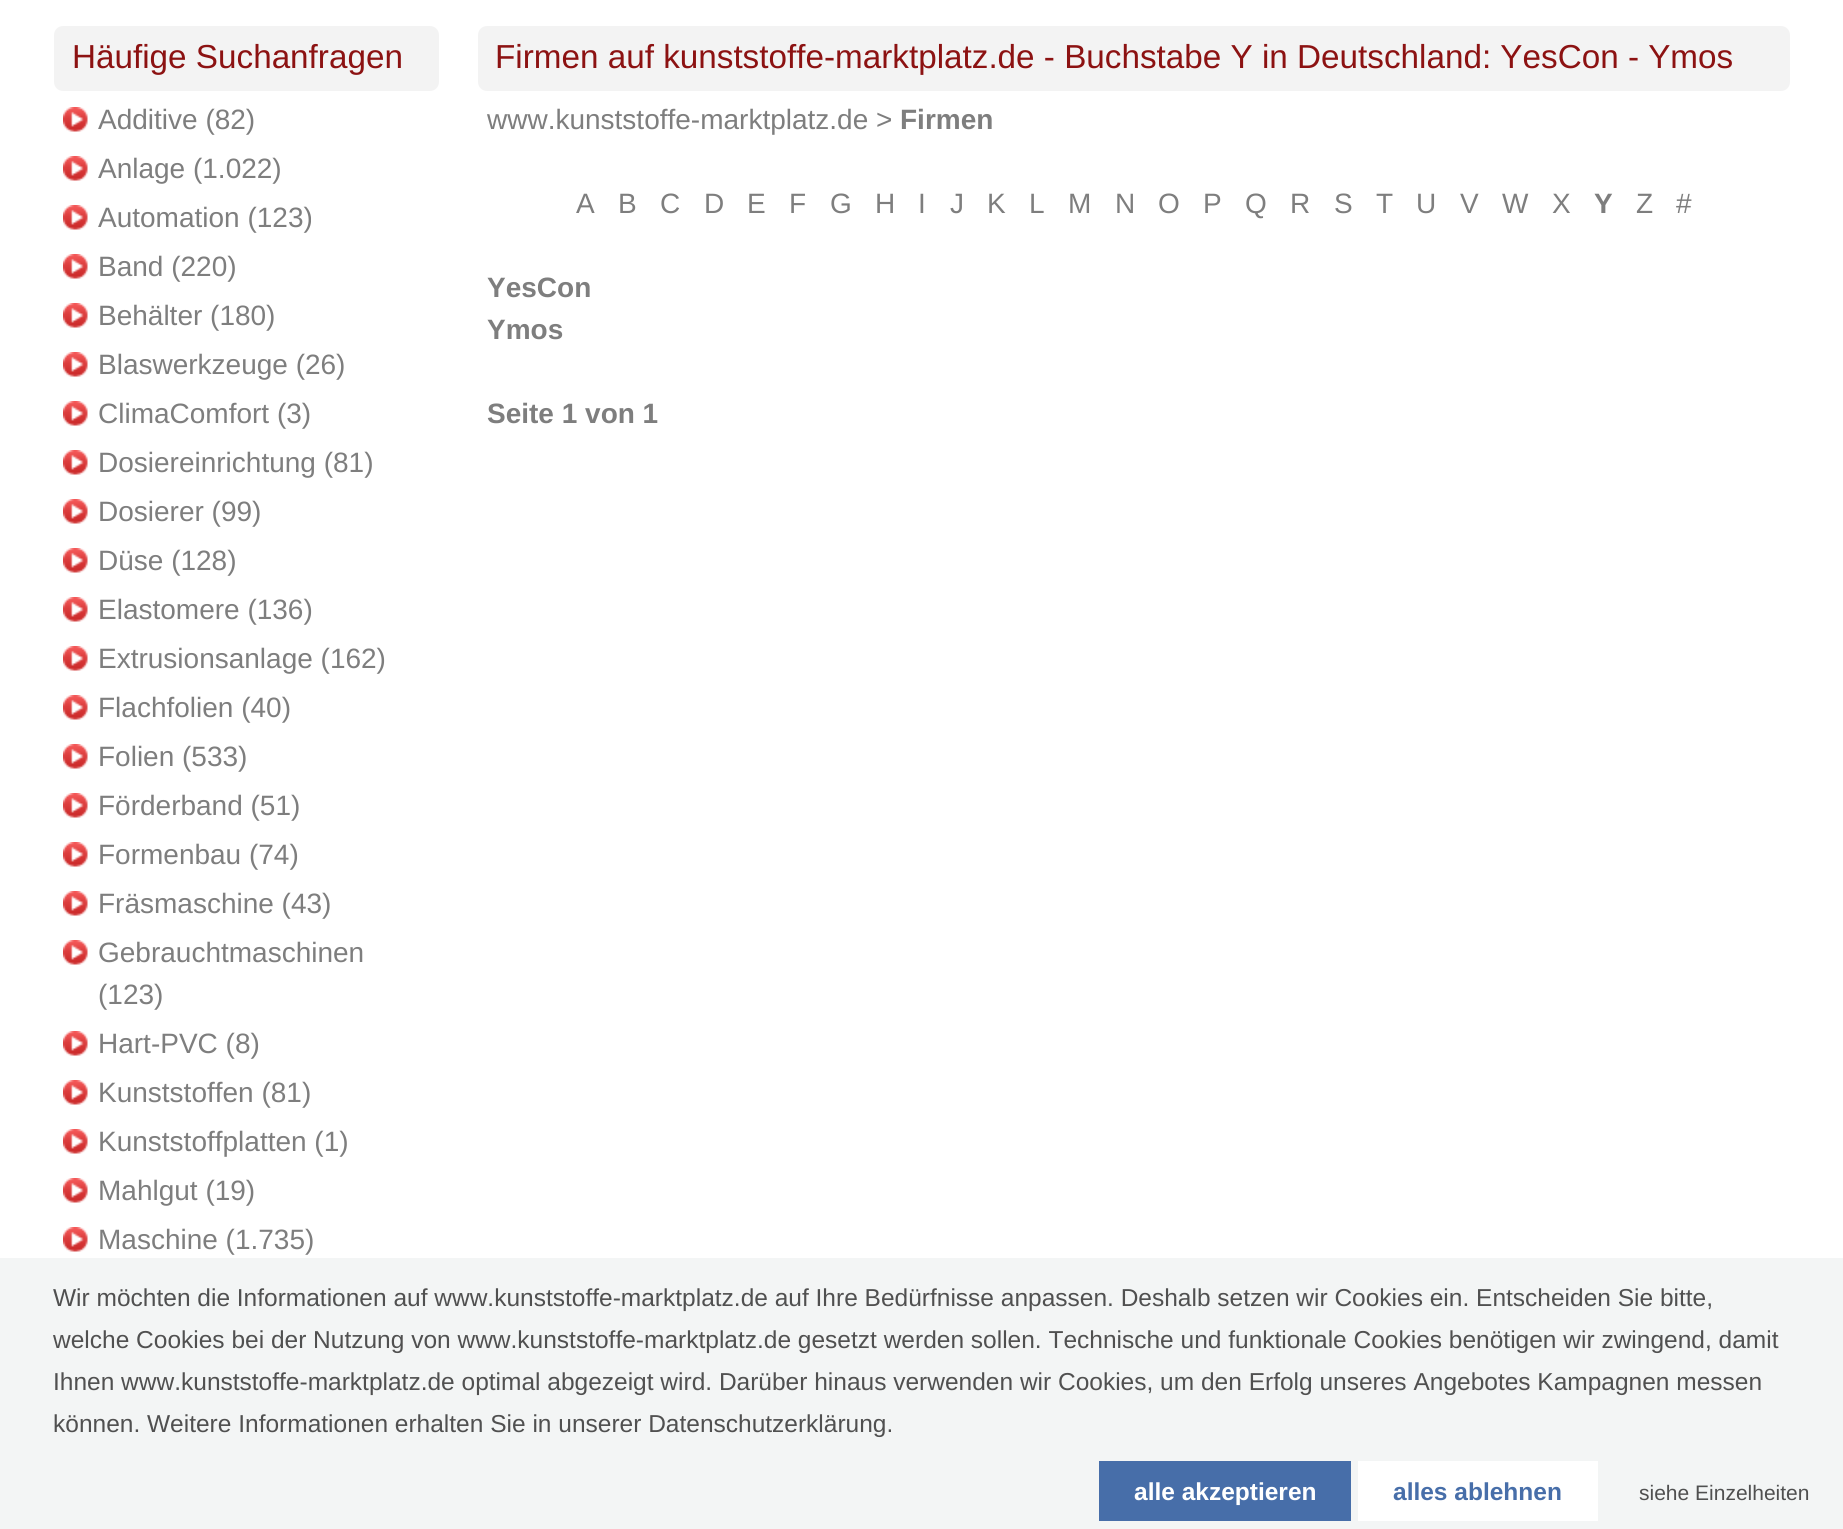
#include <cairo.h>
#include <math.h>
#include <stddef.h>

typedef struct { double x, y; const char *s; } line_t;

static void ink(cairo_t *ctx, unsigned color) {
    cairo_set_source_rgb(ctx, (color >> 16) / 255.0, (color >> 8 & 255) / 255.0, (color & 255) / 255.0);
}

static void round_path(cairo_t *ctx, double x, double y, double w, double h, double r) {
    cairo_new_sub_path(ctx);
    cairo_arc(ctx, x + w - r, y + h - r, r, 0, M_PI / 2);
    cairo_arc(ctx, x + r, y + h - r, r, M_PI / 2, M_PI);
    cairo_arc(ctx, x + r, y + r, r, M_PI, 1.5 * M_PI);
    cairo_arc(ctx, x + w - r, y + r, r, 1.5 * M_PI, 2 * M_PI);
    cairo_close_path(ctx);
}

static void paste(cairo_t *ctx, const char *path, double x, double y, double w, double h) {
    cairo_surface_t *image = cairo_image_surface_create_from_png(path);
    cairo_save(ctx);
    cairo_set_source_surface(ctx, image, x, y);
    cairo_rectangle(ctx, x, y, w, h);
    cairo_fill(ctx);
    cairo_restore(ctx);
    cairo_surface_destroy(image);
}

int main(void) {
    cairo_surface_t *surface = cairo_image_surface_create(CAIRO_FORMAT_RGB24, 1843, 1529);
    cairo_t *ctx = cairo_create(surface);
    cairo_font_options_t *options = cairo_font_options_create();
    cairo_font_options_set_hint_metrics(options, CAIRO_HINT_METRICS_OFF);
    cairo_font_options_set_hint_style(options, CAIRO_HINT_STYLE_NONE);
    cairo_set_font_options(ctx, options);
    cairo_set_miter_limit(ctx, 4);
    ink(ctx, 0xFFFFFF);
    cairo_paint(ctx);
    ink(ctx, 0xF3F3F3);
    round_path(ctx, 54, 26, 385, 65, 9);
    cairo_fill(ctx);
    cairo_select_font_face(ctx, "Liberation Sans", CAIRO_FONT_SLANT_NORMAL, CAIRO_FONT_WEIGHT_NORMAL);
    cairo_set_font_size(ctx, 33.25);
    ink(ctx, 0x8C1212);
    cairo_move_to(ctx, 72, 68);
    cairo_show_text(ctx, "Häufige Suchanfragen");
    paste(ctx, "media/1.png", 63, 107, 25, 25);
    cairo_set_font_size(ctx, 28);
    ink(ctx, 0x7E7E7E);
    cairo_move_to(ctx, 98, 129);
    cairo_show_text(ctx, "Additive (82)");
    paste(ctx, "media/1.png", 63, 156, 25, 25);
    cairo_move_to(ctx, 98, 178);
    cairo_show_text(ctx, "Anlage (1.022)");
    paste(ctx, "media/1.png", 63, 205, 25, 25);
    cairo_move_to(ctx, 98, 227);
    cairo_show_text(ctx, "Automation (123)");
    paste(ctx, "media/1.png", 63, 254, 25, 25);
    cairo_move_to(ctx, 98, 276);
    cairo_show_text(ctx, "Band (220)");
    paste(ctx, "media/1.png", 63, 303, 25, 25);
    cairo_move_to(ctx, 98, 325);
    cairo_show_text(ctx, "Behälter (180)");
    paste(ctx, "media/1.png", 63, 352, 25, 25);
    cairo_move_to(ctx, 98, 374);
    cairo_show_text(ctx, "Blaswerkzeuge (26)");
    paste(ctx, "media/1.png", 63, 401, 25, 25);
    cairo_move_to(ctx, 98, 423);
    cairo_show_text(ctx, "ClimaComfort (3)");
    paste(ctx, "media/1.png", 63, 450, 25, 25);
    cairo_move_to(ctx, 98, 472);
    cairo_show_text(ctx, "Dosiereinrichtung (81)");
    paste(ctx, "media/1.png", 63, 499, 25, 25);
    cairo_move_to(ctx, 98, 521);
    cairo_show_text(ctx, "Dosierer (99)");
    paste(ctx, "media/1.png", 63, 548, 25, 25);
    cairo_move_to(ctx, 98, 570);
    cairo_show_text(ctx, "Düse (128)");
    paste(ctx, "media/1.png", 63, 597, 25, 25);
    cairo_move_to(ctx, 98, 619);
    cairo_show_text(ctx, "Elastomere (136)");
    paste(ctx, "media/1.png", 63, 646, 25, 25);
    cairo_move_to(ctx, 98, 668);
    cairo_show_text(ctx, "Extrusionsanlage (162)");
    paste(ctx, "media/1.png", 63, 695, 25, 25);
    cairo_move_to(ctx, 98, 717);
    cairo_show_text(ctx, "Flachfolien (40)");
    paste(ctx, "media/1.png", 63, 744, 25, 25);
    cairo_move_to(ctx, 98, 766);
    cairo_show_text(ctx, "Folien (533)");
    paste(ctx, "media/1.png", 63, 793, 25, 25);
    cairo_move_to(ctx, 98, 815);
    cairo_show_text(ctx, "Förderband (51)");
    paste(ctx, "media/1.png", 63, 842, 25, 25);
    cairo_move_to(ctx, 98, 864);
    cairo_show_text(ctx, "Formenbau (74)");
    paste(ctx, "media/1.png", 63, 891, 25, 25);
    cairo_move_to(ctx, 98, 913);
    cairo_show_text(ctx, "Fräsmaschine (43)");
    paste(ctx, "media/1.png", 63, 940, 25, 25);
    cairo_move_to(ctx, 98, 962);
    cairo_show_text(ctx, "Gebrauchtmaschinen");
    cairo_move_to(ctx, 98, 1004);
    cairo_show_text(ctx, "(123)");
    paste(ctx, "media/1.png", 63, 1031, 25, 25);
    cairo_move_to(ctx, 98, 1053);
    cairo_show_text(ctx, "Hart-PVC (8)");
    paste(ctx, "media/1.png", 63, 1080, 25, 25);
    cairo_move_to(ctx, 98, 1102);
    cairo_show_text(ctx, "Kunststoffen (81)");
    paste(ctx, "media/1.png", 63, 1129, 25, 25);
    cairo_move_to(ctx, 98, 1151);
    cairo_show_text(ctx, "Kunststoffplatten (1)");
    paste(ctx, "media/1.png", 63, 1178, 25, 25);
    cairo_move_to(ctx, 98, 1200);
    cairo_show_text(ctx, "Mahlgut (19)");
    paste(ctx, "media/1.png", 63, 1227, 25, 25);
    cairo_move_to(ctx, 98, 1249);
    cairo_show_text(ctx, "Maschine (1.735)");
    ink(ctx, 0xF3F3F3);
    round_path(ctx, 478, 26, 1312, 65, 9);
    cairo_fill(ctx);
    cairo_set_font_size(ctx, 33.25);
    ink(ctx, 0x8C1212);
    cairo_move_to(ctx, 495, 68);
    cairo_show_text(ctx, "Firmen auf kunststoffe-marktplatz.de - Buchstabe Y in Deutschland: YesCon - Ymos");
    cairo_set_font_size(ctx, 28);
    ink(ctx, 0x7E7E7E);
    cairo_move_to(ctx, 487, 129);
    cairo_show_text(ctx, "www.kunststoffe-marktplatz.de >");
    cairo_select_font_face(ctx, "Liberation Sans", CAIRO_FONT_SLANT_NORMAL, CAIRO_FONT_WEIGHT_BOLD);
    cairo_move_to(ctx, 900, 129);
    cairo_show_text(ctx, "Firmen");
    cairo_select_font_face(ctx, "Liberation Sans", CAIRO_FONT_SLANT_NORMAL, CAIRO_FONT_WEIGHT_NORMAL);
    {
        static const line_t items[] = {
            {576, 213, "A"},
            {618, 213, "B"},
            {660, 213, "C"},
            {704, 213, "D"},
            {747, 213, "E"},
            {789, 213, "F"},
            {830, 213, "G"},
            {875, 213, "H"},
            {918, 213, "I"},
            {950, 213, "J"},
            {987, 213, "K"},
            {1029, 213, "L"},
            {1068, 213, "M"},
            {1115, 213, "N"},
            {1158, 213, "O"},
            {1203, 213, "P"},
            {1245, 213, "Q"},
            {1290, 213, "R"},
            {1334, 213, "S"},
            {1376, 213, "T"},
            {1416, 213, "U"},
            {1460, 213, "V"},
            {1502, 213, "W"},
            {1552, 213, "X"},
        };
        for (size_t i = 0; i < sizeof items / sizeof *items; i++) {
            cairo_move_to(ctx, items[i].x, items[i].y);
            cairo_show_text(ctx, items[i].s);
        }
    }
    cairo_select_font_face(ctx, "Liberation Sans", CAIRO_FONT_SLANT_NORMAL, CAIRO_FONT_WEIGHT_BOLD);
    cairo_move_to(ctx, 1594, 213);
    cairo_show_text(ctx, "Y");
    cairo_select_font_face(ctx, "Liberation Sans", CAIRO_FONT_SLANT_NORMAL, CAIRO_FONT_WEIGHT_NORMAL);
    cairo_move_to(ctx, 1636, 213);
    cairo_show_text(ctx, "Z");
    cairo_move_to(ctx, 1676, 213);
    cairo_show_text(ctx, "#");
    cairo_select_font_face(ctx, "Liberation Sans", CAIRO_FONT_SLANT_NORMAL, CAIRO_FONT_WEIGHT_BOLD);
    {
        static const line_t items[] = {
            {487, 297, "YesCon"},
            {487, 339, "Ymos"},
            {487, 423, "Seite 1 von 1"},
        };
        for (size_t i = 0; i < sizeof items / sizeof *items; i++) {
            cairo_move_to(ctx, items[i].x, items[i].y);
            cairo_show_text(ctx, items[i].s);
        }
    }
    ink(ctx, 0xF3F5F5);
    cairo_rectangle(ctx, 0, 1258, 1843, 271);
    cairo_fill(ctx);
    cairo_select_font_face(ctx, "Liberation Sans", CAIRO_FONT_SLANT_NORMAL, CAIRO_FONT_WEIGHT_NORMAL);
    cairo_set_font_size(ctx, 24.5);
    ink(ctx, 0x505050);
    {
        static const line_t items[] = {
            {53, 1306, "Wir möchten die Informationen auf www.kunststoffe-marktplatz.de auf Ihre Bedürfnisse anpassen. Deshalb setzen wir Cookies ein. Entscheiden Sie bitte,"},
            {53, 1348, "welche Cookies bei der Nutzung von www.kunststoffe-marktplatz.de gesetzt werden sollen. Technische und funktionale Cookies benötigen wir zwingend, damit"},
            {53, 1390, "Ihnen www.kunststoffe-marktplatz.de optimal abgezeigt wird. Darüber hinaus verwenden wir Cookies, um den Erfolg unseres Angebotes Kampagnen messen"},
            {53, 1432, "können. Weitere Informationen erhalten Sie in unserer Datenschutzerklärung."},
        };
        for (size_t i = 0; i < sizeof items / sizeof *items; i++) {
            cairo_move_to(ctx, items[i].x, items[i].y);
            cairo_show_text(ctx, items[i].s);
        }
    }
    ink(ctx, 0x476EA9);
    cairo_rectangle(ctx, 1099, 1461, 252, 60);
    cairo_fill(ctx);
    cairo_select_font_face(ctx, "Liberation Sans", CAIRO_FONT_SLANT_NORMAL, CAIRO_FONT_WEIGHT_BOLD);
    ink(ctx, 0xFFFFFF);
    cairo_move_to(ctx, 1134, 1500);
    cairo_show_text(ctx, "alle akzeptieren");
    cairo_rectangle(ctx, 1358, 1461, 240, 60);
    cairo_fill(ctx);
    ink(ctx, 0x476EA9);
    cairo_move_to(ctx, 1393, 1500);
    cairo_show_text(ctx, "alles ablehnen");
    cairo_select_font_face(ctx, "Liberation Sans", CAIRO_FONT_SLANT_NORMAL, CAIRO_FONT_WEIGHT_NORMAL);
    cairo_set_font_size(ctx, 21);
    ink(ctx, 0x505050);
    cairo_move_to(ctx, 1639, 1500);
    cairo_show_text(ctx, "siehe Einzelheiten");
    cairo_surface_write_to_png(surface, "image.png");
    cairo_font_options_destroy(options);
    cairo_destroy(ctx);
    cairo_surface_destroy(surface);
    return 0;
}
